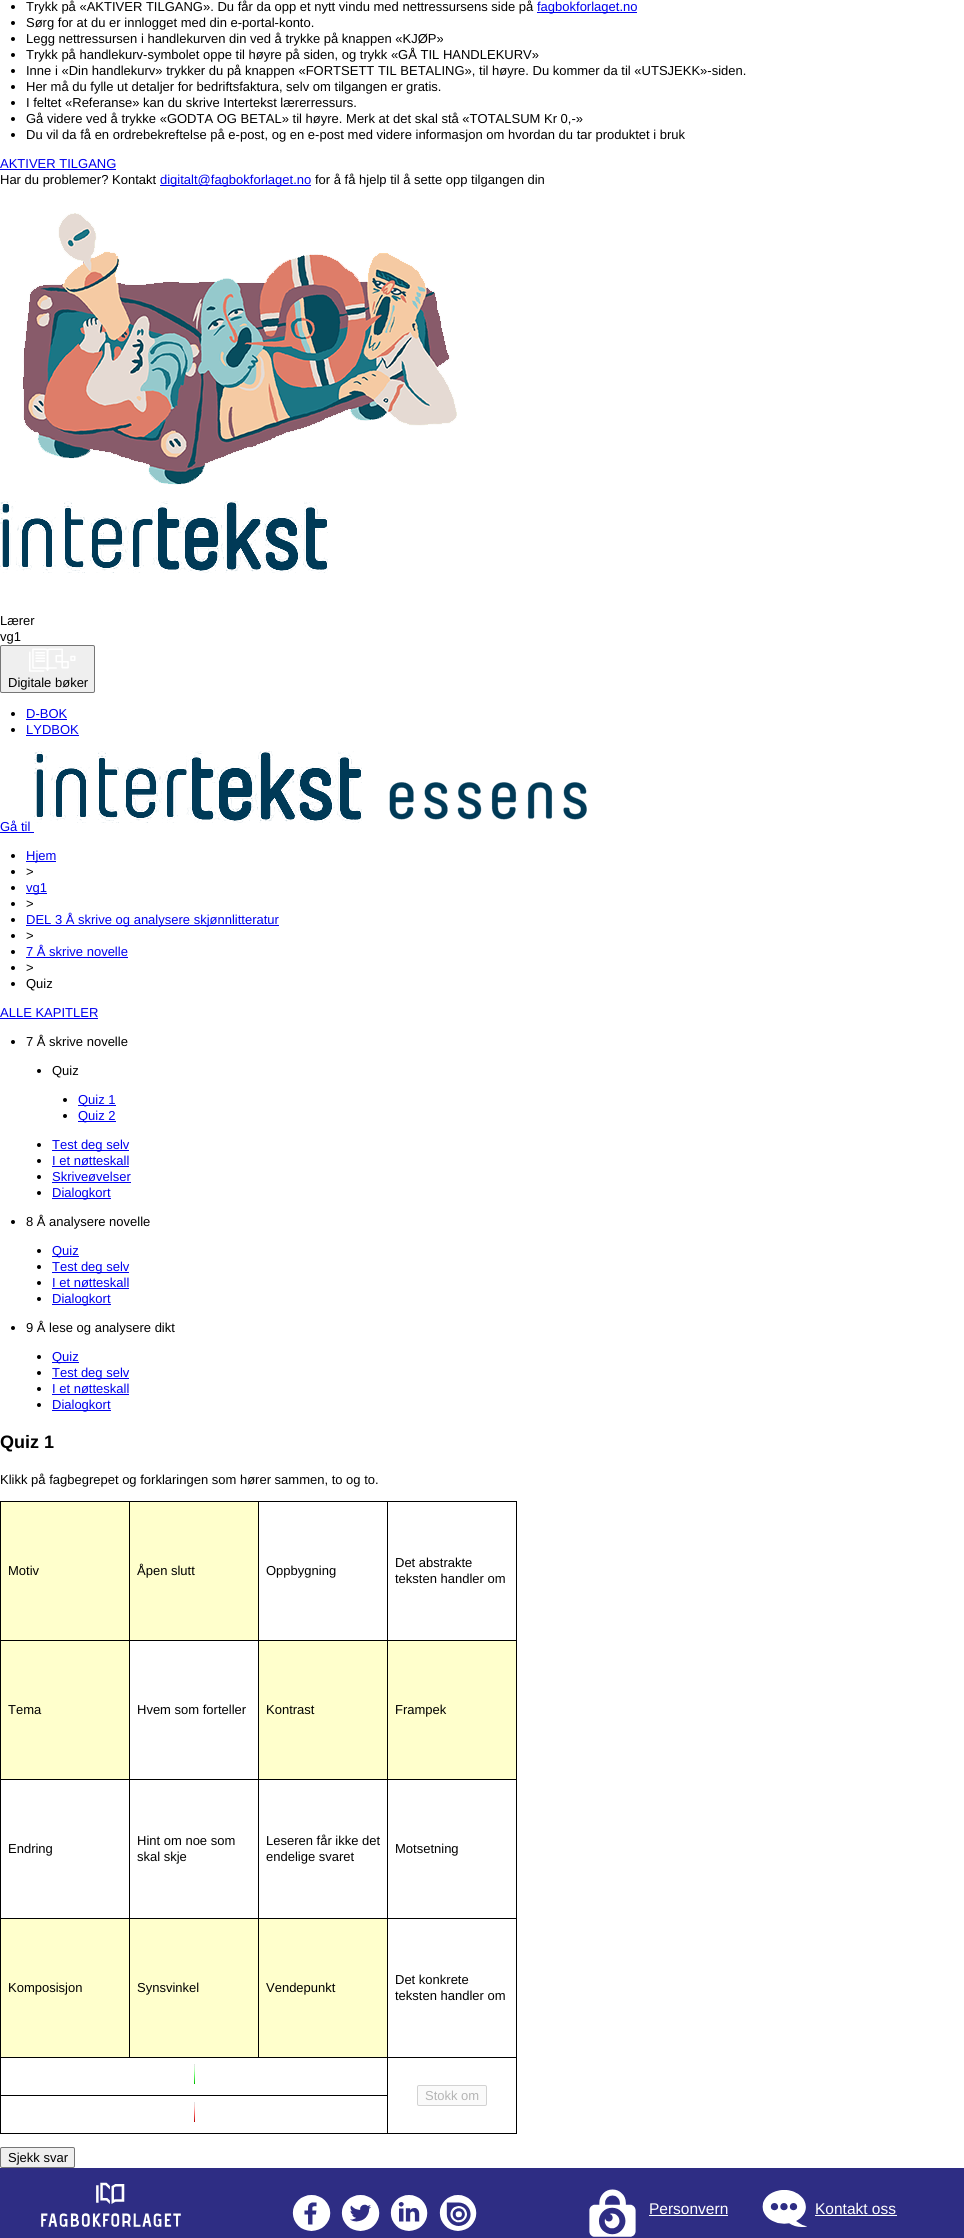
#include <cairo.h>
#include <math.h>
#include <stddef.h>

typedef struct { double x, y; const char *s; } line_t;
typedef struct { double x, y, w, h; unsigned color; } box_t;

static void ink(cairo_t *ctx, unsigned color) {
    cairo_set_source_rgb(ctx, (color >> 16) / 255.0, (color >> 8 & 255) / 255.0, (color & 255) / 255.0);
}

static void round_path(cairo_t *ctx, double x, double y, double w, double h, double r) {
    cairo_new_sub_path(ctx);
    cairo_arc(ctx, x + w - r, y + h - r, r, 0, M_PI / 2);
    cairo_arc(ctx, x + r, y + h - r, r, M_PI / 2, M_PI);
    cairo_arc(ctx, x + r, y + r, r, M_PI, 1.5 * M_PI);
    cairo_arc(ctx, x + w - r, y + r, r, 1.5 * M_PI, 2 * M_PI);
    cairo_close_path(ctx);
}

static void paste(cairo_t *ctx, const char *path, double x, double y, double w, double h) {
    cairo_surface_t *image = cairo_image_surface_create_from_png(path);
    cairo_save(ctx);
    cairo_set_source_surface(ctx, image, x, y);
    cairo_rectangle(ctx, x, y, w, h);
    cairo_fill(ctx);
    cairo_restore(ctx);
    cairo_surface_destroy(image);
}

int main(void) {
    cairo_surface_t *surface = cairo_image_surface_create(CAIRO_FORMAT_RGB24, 964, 2238);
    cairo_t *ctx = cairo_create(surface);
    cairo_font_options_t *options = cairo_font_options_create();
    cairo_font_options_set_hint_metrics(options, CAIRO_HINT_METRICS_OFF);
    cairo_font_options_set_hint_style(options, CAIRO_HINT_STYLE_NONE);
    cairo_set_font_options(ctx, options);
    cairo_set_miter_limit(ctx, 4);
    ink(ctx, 0xFFFFFF);
    cairo_paint(ctx);
    ink(ctx, 0x000000);
    cairo_arc(ctx, 13, 7, 2, 0, 2 * M_PI);
    cairo_fill(ctx);
    cairo_select_font_face(ctx, "Liberation Sans", CAIRO_FONT_SLANT_NORMAL, CAIRO_FONT_WEIGHT_NORMAL);
    cairo_set_font_size(ctx, 13);
    cairo_move_to(ctx, 26, 11);
    cairo_show_text(ctx, "Trykk på «AKTIVER TILGANG». Du får da opp et nytt vindu med nettressursens side på");
    ink(ctx, 0x0000EE);
    cairo_rectangle(ctx, 537, 12, 100, 1);
    cairo_fill(ctx);
    cairo_move_to(ctx, 537, 11);
    cairo_show_text(ctx, "fagbokforlaget.no");
    ink(ctx, 0x000000);
    cairo_new_path(ctx);
    cairo_arc(ctx, 13, 23, 2, 0, 2 * M_PI);
    cairo_fill(ctx);
    cairo_move_to(ctx, 26, 27);
    cairo_show_text(ctx, "Sørg for at du er innlogget med din e-portal-konto.");
    cairo_new_path(ctx);
    cairo_arc(ctx, 13, 39, 2, 0, 2 * M_PI);
    cairo_fill(ctx);
    cairo_move_to(ctx, 26, 43);
    cairo_show_text(ctx, "Legg nettressursen i handlekurven din ved å trykke på knappen «KJØP»");
    cairo_new_path(ctx);
    cairo_arc(ctx, 13, 55, 2, 0, 2 * M_PI);
    cairo_fill(ctx);
    cairo_move_to(ctx, 26, 59);
    cairo_show_text(ctx, "Trykk på handlekurv-symbolet oppe til høyre på siden, og trykk «GÅ TIL HANDLEKURV»");
    cairo_new_path(ctx);
    cairo_arc(ctx, 13, 71, 2, 0, 2 * M_PI);
    cairo_fill(ctx);
    cairo_move_to(ctx, 26, 75);
    cairo_show_text(ctx, "Inne i «Din handlekurv» trykker du på knappen «FORTSETT TIL BETALING», til høyre. Du kommer da til «UTSJEKK»-siden.");
    cairo_new_path(ctx);
    cairo_arc(ctx, 13, 87, 2, 0, 2 * M_PI);
    cairo_fill(ctx);
    cairo_move_to(ctx, 26, 91);
    cairo_show_text(ctx, "Her må du fylle ut detaljer for bedriftsfaktura, selv om tilgangen er gratis.");
    cairo_new_path(ctx);
    cairo_arc(ctx, 13, 103, 2, 0, 2 * M_PI);
    cairo_fill(ctx);
    cairo_move_to(ctx, 26, 107);
    cairo_show_text(ctx, "I feltet «Referanse» kan du skrive Intertekst lærerressurs.");
    cairo_new_path(ctx);
    cairo_arc(ctx, 13, 119, 2, 0, 2 * M_PI);
    cairo_fill(ctx);
    cairo_move_to(ctx, 26, 123);
    cairo_show_text(ctx, "Gå videre ved å trykke «GODTA OG BETAL» til høyre. Merk at det skal stå «TOTALSUM Kr 0,-»");
    cairo_new_path(ctx);
    cairo_arc(ctx, 13, 135, 2, 0, 2 * M_PI);
    cairo_fill(ctx);
    cairo_move_to(ctx, 26, 139);
    cairo_show_text(ctx, "Du vil da få en ordrebekreftelse på e-post, og en e-post med videre informasjon om hvordan du tar produktet i bruk");
    ink(ctx, 0x0000EE);
    cairo_move_to(ctx, 0, 168);
    cairo_show_text(ctx, "AKTIVER TILGANG");
    cairo_rectangle(ctx, 0, 169, 116, 1);
    cairo_fill(ctx);
    ink(ctx, 0x000000);
    cairo_move_to(ctx, 0, 184);
    cairo_show_text(ctx, "Har du problemer? Kontakt");
    ink(ctx, 0x0000EE);
    cairo_rectangle(ctx, 160, 185, 151, 1);
    cairo_fill(ctx);
    cairo_move_to(ctx, 160, 184);
    cairo_show_text(ctx, "digitalt@fagbokforlaget.no");
    ink(ctx, 0x000000);
    cairo_move_to(ctx, 315, 184);
    cairo_show_text(ctx, "for å få hjelp til å sette opp tilgangen din");
    paste(ctx, "media/1.png", 23, 213, 434, 272);
    paste(ctx, "media/2.png", 0, 501, 328, 72);
    cairo_move_to(ctx, 0, 625);
    cairo_show_text(ctx, "Lærer");
    cairo_move_to(ctx, 0, 641);
    cairo_show_text(ctx, "vg1");
    ink(ctx, 0xEFEFEF);
    round_path(ctx, 0.5, 645.5, 94, 47, 1.5);
    cairo_fill_preserve(ctx);
    ink(ctx, 0x767676);
    cairo_set_line_width(ctx, 1);
    cairo_stroke(ctx);
    paste(ctx, "media/3.png", 29, 648, 47, 24);
    ink(ctx, 0x000000);
    cairo_move_to(ctx, 8, 687);
    cairo_show_text(ctx, "Digitale bøker");
    cairo_new_path(ctx);
    cairo_arc(ctx, 13, 714, 2, 0, 2 * M_PI);
    cairo_fill(ctx);
    ink(ctx, 0x0000EE);
    cairo_move_to(ctx, 26, 718);
    cairo_show_text(ctx, "D-BOK");
    cairo_rectangle(ctx, 26, 719, 41, 1);
    cairo_fill(ctx);
    ink(ctx, 0x000000);
    cairo_arc(ctx, 13, 730, 2, 0, 2 * M_PI);
    cairo_fill(ctx);
    ink(ctx, 0x0000EE);
    cairo_move_to(ctx, 26, 734);
    cairo_show_text(ctx, "LYDBOK");
    cairo_rectangle(ctx, 26, 735, 53, 1);
    cairo_fill(ctx);
    paste(ctx, "media/4.png", 34, 751, 553, 72);
    cairo_move_to(ctx, 0, 831);
    cairo_show_text(ctx, "Gå til");
    cairo_rectangle(ctx, 0, 832, 34, 1);
    cairo_fill(ctx);
    ink(ctx, 0x000000);
    cairo_arc(ctx, 13, 856, 2, 0, 2 * M_PI);
    cairo_fill(ctx);
    ink(ctx, 0x0000EE);
    cairo_rectangle(ctx, 26, 861, 30, 1);
    cairo_fill(ctx);
    cairo_move_to(ctx, 26, 860);
    cairo_show_text(ctx, "Hjem");
    ink(ctx, 0x000000);
    cairo_new_path(ctx);
    cairo_arc(ctx, 13, 872, 2, 0, 2 * M_PI);
    cairo_fill(ctx);
    cairo_move_to(ctx, 26, 876);
    cairo_show_text(ctx, ">");
    cairo_new_path(ctx);
    cairo_arc(ctx, 13, 888, 2, 0, 2 * M_PI);
    cairo_fill(ctx);
    ink(ctx, 0x0000EE);
    cairo_rectangle(ctx, 26, 893, 21, 1);
    cairo_fill(ctx);
    cairo_move_to(ctx, 26, 892);
    cairo_show_text(ctx, "vg1");
    ink(ctx, 0x000000);
    cairo_new_path(ctx);
    cairo_arc(ctx, 13, 904, 2, 0, 2 * M_PI);
    cairo_fill(ctx);
    cairo_move_to(ctx, 26, 908);
    cairo_show_text(ctx, ">");
    cairo_new_path(ctx);
    cairo_arc(ctx, 13, 920, 2, 0, 2 * M_PI);
    cairo_fill(ctx);
    ink(ctx, 0x0000EE);
    cairo_rectangle(ctx, 26, 925, 253, 1);
    cairo_fill(ctx);
    cairo_move_to(ctx, 26, 924);
    cairo_show_text(ctx, "DEL 3 Å skrive og analysere skjønnlitteratur");
    ink(ctx, 0x000000);
    cairo_new_path(ctx);
    cairo_arc(ctx, 13, 936, 2, 0, 2 * M_PI);
    cairo_fill(ctx);
    cairo_move_to(ctx, 26, 940);
    cairo_show_text(ctx, ">");
    cairo_new_path(ctx);
    cairo_arc(ctx, 13, 952, 2, 0, 2 * M_PI);
    cairo_fill(ctx);
    ink(ctx, 0x0000EE);
    cairo_move_to(ctx, 26, 956);
    cairo_show_text(ctx, "7 Å skrive novelle");
    cairo_rectangle(ctx, 26, 957, 102, 1);
    cairo_fill(ctx);
    ink(ctx, 0x000000);
    cairo_arc(ctx, 13, 968, 2, 0, 2 * M_PI);
    cairo_fill(ctx);
    cairo_move_to(ctx, 26, 972);
    cairo_show_text(ctx, ">");
    cairo_new_path(ctx);
    cairo_arc(ctx, 13, 984, 2, 0, 2 * M_PI);
    cairo_fill(ctx);
    cairo_move_to(ctx, 26, 988);
    cairo_show_text(ctx, "Quiz");
    ink(ctx, 0x0000EE);
    cairo_move_to(ctx, 0, 1017);
    cairo_show_text(ctx, "ALLE KAPITLER");
    cairo_rectangle(ctx, 0, 1018, 98, 1);
    cairo_fill(ctx);
    ink(ctx, 0x000000);
    cairo_arc(ctx, 13, 1042, 2, 0, 2 * M_PI);
    cairo_fill(ctx);
    cairo_move_to(ctx, 26, 1046);
    cairo_show_text(ctx, "7 Å skrive novelle");
    cairo_new_path(ctx);
    cairo_arc(ctx, 39, 1071, 2, 0, 2 * M_PI);
    cairo_fill(ctx);
    cairo_move_to(ctx, 52, 1075);
    cairo_show_text(ctx, "Quiz");
    cairo_new_path(ctx);
    cairo_arc(ctx, 65, 1100, 2, 0, 2 * M_PI);
    cairo_fill(ctx);
    ink(ctx, 0x0000EE);
    cairo_rectangle(ctx, 78, 1105, 38, 1);
    cairo_fill(ctx);
    cairo_move_to(ctx, 78, 1104);
    cairo_show_text(ctx, "Quiz 1");
    ink(ctx, 0x000000);
    cairo_new_path(ctx);
    cairo_arc(ctx, 65, 1116, 2, 0, 2 * M_PI);
    cairo_fill(ctx);
    ink(ctx, 0x0000EE);
    cairo_rectangle(ctx, 78, 1121, 38, 1);
    cairo_fill(ctx);
    cairo_move_to(ctx, 78, 1120);
    cairo_show_text(ctx, "Quiz 2");
    ink(ctx, 0x000000);
    cairo_new_path(ctx);
    cairo_arc(ctx, 39, 1145, 2, 0, 2 * M_PI);
    cairo_fill(ctx);
    ink(ctx, 0x0000EE);
    cairo_rectangle(ctx, 52, 1150, 77, 1);
    cairo_fill(ctx);
    cairo_move_to(ctx, 52, 1149);
    cairo_show_text(ctx, "Test deg selv");
    ink(ctx, 0x000000);
    cairo_new_path(ctx);
    cairo_arc(ctx, 39, 1161, 2, 0, 2 * M_PI);
    cairo_fill(ctx);
    ink(ctx, 0x0000EE);
    cairo_move_to(ctx, 52, 1165);
    cairo_show_text(ctx, "I et nøtteskall");
    cairo_rectangle(ctx, 52, 1166, 77, 1);
    cairo_fill(ctx);
    ink(ctx, 0x000000);
    cairo_arc(ctx, 39, 1177, 2, 0, 2 * M_PI);
    cairo_fill(ctx);
    ink(ctx, 0x0000EE);
    cairo_move_to(ctx, 52, 1181);
    cairo_show_text(ctx, "Skriveøvelser");
    cairo_rectangle(ctx, 52, 1182, 79, 1);
    cairo_fill(ctx);
    ink(ctx, 0x000000);
    cairo_arc(ctx, 39, 1193, 2, 0, 2 * M_PI);
    cairo_fill(ctx);
    ink(ctx, 0x0000EE);
    cairo_rectangle(ctx, 52, 1198, 59, 1);
    cairo_fill(ctx);
    cairo_move_to(ctx, 52, 1197);
    cairo_show_text(ctx, "Dialogkort");
    ink(ctx, 0x000000);
    cairo_new_path(ctx);
    cairo_arc(ctx, 13, 1222, 2, 0, 2 * M_PI);
    cairo_fill(ctx);
    cairo_move_to(ctx, 26, 1226);
    cairo_show_text(ctx, "8 Å analysere novelle");
    cairo_new_path(ctx);
    cairo_arc(ctx, 39, 1251, 2, 0, 2 * M_PI);
    cairo_fill(ctx);
    ink(ctx, 0x0000EE);
    cairo_rectangle(ctx, 52, 1256, 27, 1);
    cairo_fill(ctx);
    cairo_move_to(ctx, 52, 1255);
    cairo_show_text(ctx, "Quiz");
    ink(ctx, 0x000000);
    cairo_new_path(ctx);
    cairo_arc(ctx, 39, 1267, 2, 0, 2 * M_PI);
    cairo_fill(ctx);
    ink(ctx, 0x0000EE);
    cairo_rectangle(ctx, 52, 1272, 77, 1);
    cairo_fill(ctx);
    cairo_move_to(ctx, 52, 1271);
    cairo_show_text(ctx, "Test deg selv");
    ink(ctx, 0x000000);
    cairo_new_path(ctx);
    cairo_arc(ctx, 39, 1283, 2, 0, 2 * M_PI);
    cairo_fill(ctx);
    ink(ctx, 0x0000EE);
    cairo_move_to(ctx, 52, 1287);
    cairo_show_text(ctx, "I et nøtteskall");
    cairo_rectangle(ctx, 52, 1288, 77, 1);
    cairo_fill(ctx);
    ink(ctx, 0x000000);
    cairo_arc(ctx, 39, 1299, 2, 0, 2 * M_PI);
    cairo_fill(ctx);
    ink(ctx, 0x0000EE);
    cairo_rectangle(ctx, 52, 1304, 59, 1);
    cairo_fill(ctx);
    cairo_move_to(ctx, 52, 1303);
    cairo_show_text(ctx, "Dialogkort");
    ink(ctx, 0x000000);
    cairo_new_path(ctx);
    cairo_arc(ctx, 13, 1328, 2, 0, 2 * M_PI);
    cairo_fill(ctx);
    cairo_move_to(ctx, 26, 1332);
    cairo_show_text(ctx, "9 Å lese og analysere dikt");
    cairo_new_path(ctx);
    cairo_arc(ctx, 39, 1357, 2, 0, 2 * M_PI);
    cairo_fill(ctx);
    ink(ctx, 0x0000EE);
    cairo_rectangle(ctx, 52, 1362, 27, 1);
    cairo_fill(ctx);
    cairo_move_to(ctx, 52, 1361);
    cairo_show_text(ctx, "Quiz");
    ink(ctx, 0x000000);
    cairo_new_path(ctx);
    cairo_arc(ctx, 39, 1373, 2, 0, 2 * M_PI);
    cairo_fill(ctx);
    ink(ctx, 0x0000EE);
    cairo_rectangle(ctx, 52, 1378, 77, 1);
    cairo_fill(ctx);
    cairo_move_to(ctx, 52, 1377);
    cairo_show_text(ctx, "Test deg selv");
    ink(ctx, 0x000000);
    cairo_new_path(ctx);
    cairo_arc(ctx, 39, 1389, 2, 0, 2 * M_PI);
    cairo_fill(ctx);
    ink(ctx, 0x0000EE);
    cairo_move_to(ctx, 52, 1393);
    cairo_show_text(ctx, "I et nøtteskall");
    cairo_rectangle(ctx, 52, 1394, 77, 1);
    cairo_fill(ctx);
    ink(ctx, 0x000000);
    cairo_arc(ctx, 39, 1405, 2, 0, 2 * M_PI);
    cairo_fill(ctx);
    ink(ctx, 0x0000EE);
    cairo_rectangle(ctx, 52, 1410, 59, 1);
    cairo_fill(ctx);
    cairo_move_to(ctx, 52, 1409);
    cairo_show_text(ctx, "Dialogkort");
    cairo_select_font_face(ctx, "Liberation Sans", CAIRO_FONT_SLANT_NORMAL, CAIRO_FONT_WEIGHT_BOLD);
    cairo_set_font_size(ctx, 18);
    ink(ctx, 0x000000);
    cairo_move_to(ctx, 0, 1448);
    cairo_show_text(ctx, "Quiz 1");
    cairo_select_font_face(ctx, "Liberation Sans", CAIRO_FONT_SLANT_NORMAL, CAIRO_FONT_WEIGHT_NORMAL);
    cairo_set_font_size(ctx, 13);
    cairo_move_to(ctx, 0, 1484);
    cairo_show_text(ctx, "Klikk på fagbegrepet og forklaringen som hører sammen, to og to.");
    {
        static const box_t items[] = {
            {1, 1502, 128, 138, 0xFFFFCC},
            {387, 1501, 130, 1, 0x000000},
            {387, 1640, 130, 1, 0x000000},
            {387, 1779, 130, 1, 0x000000},
            {387, 1918, 130, 1, 0x000000},
            {387, 2057, 130, 1, 0x000000},
            {0, 2095, 388, 1, 0x000000},
            {0, 2133, 388, 1, 0x000000},
            {516, 2057, 1, 77, 0x000000},
            {387, 2133, 130, 1, 0x000000},
            {387, 2057, 1, 77, 0x000000},
            {0, 2057, 388, 1, 0x000000},
            {387, 1918, 1, 140, 0x000000},
            {258, 1918, 130, 1, 0x000000},
            {387, 1779, 1, 140, 0x000000},
            {258, 1779, 130, 1, 0x000000},
            {387, 1640, 1, 140, 0x000000},
            {258, 1640, 130, 1, 0x000000},
            {387, 1501, 1, 140, 0x000000},
            {258, 1501, 130, 1, 0x000000},
            {258, 1918, 1, 140, 0x000000},
            {129, 1918, 130, 1, 0x000000},
            {258, 1779, 1, 140, 0x000000},
            {129, 1779, 130, 1, 0x000000},
            {258, 1640, 1, 140, 0x000000},
            {129, 1640, 130, 1, 0x000000},
            {258, 1501, 1, 140, 0x000000},
            {129, 1501, 130, 1, 0x000000},
            {129, 1918, 1, 140, 0x000000},
            {0, 1918, 130, 1, 0x000000},
            {129, 1779, 1, 140, 0x000000},
            {0, 1779, 130, 1, 0x000000},
            {129, 1640, 1, 140, 0x000000},
            {0, 1640, 130, 1, 0x000000},
            {129, 1501, 1, 140, 0x000000},
            {0, 1501, 130, 1, 0x000000},
            {0, 2095, 1, 39, 0x000000},
            {0, 2057, 1, 39, 0x000000},
            {0, 1918, 1, 140, 0x000000},
            {0, 1779, 1, 140, 0x000000},
            {0, 1640, 1, 140, 0x000000},
            {0, 1501, 1, 140, 0x000000},
        };
        for (size_t i = 0; i < sizeof items / sizeof *items; i++) {
            ink(ctx, items[i].color);
            cairo_rectangle(ctx, items[i].x, items[i].y, items[i].w, items[i].h);
            cairo_fill(ctx);
        }
    }
    cairo_move_to(ctx, 8, 1575);
    cairo_show_text(ctx, "Motiv");
    ink(ctx, 0xFFFFCC);
    cairo_rectangle(ctx, 130, 1502, 128, 138);
    cairo_fill(ctx);
    ink(ctx, 0x000000);
    cairo_move_to(ctx, 137, 1575);
    cairo_show_text(ctx, "Åpen slutt");
    cairo_move_to(ctx, 266, 1575);
    cairo_show_text(ctx, "Oppbygning");
    {
        static const box_t items[] = {
            {516, 1918, 1, 140, 0x000000},
            {516, 1779, 1, 140, 0x000000},
            {516, 1640, 1, 140, 0x000000},
            {516, 1501, 1, 140, 0x000000},
        };
        for (size_t i = 0; i < sizeof items / sizeof *items; i++) {
            ink(ctx, items[i].color);
            cairo_rectangle(ctx, items[i].x, items[i].y, items[i].w, items[i].h);
            cairo_fill(ctx);
        }
    }
    cairo_move_to(ctx, 395, 1567);
    cairo_show_text(ctx, "Det abstrakte");
    cairo_move_to(ctx, 395, 1583);
    cairo_show_text(ctx, "teksten handler om");
    ink(ctx, 0xFFFFCC);
    cairo_rectangle(ctx, 1, 1641, 128, 138);
    cairo_fill(ctx);
    ink(ctx, 0x000000);
    cairo_move_to(ctx, 8, 1714);
    cairo_show_text(ctx, "Tema");
    cairo_move_to(ctx, 137, 1714);
    cairo_show_text(ctx, "Hvem som forteller");
    ink(ctx, 0xFFFFCC);
    cairo_rectangle(ctx, 259, 1641, 128, 138);
    cairo_fill(ctx);
    ink(ctx, 0x000000);
    cairo_move_to(ctx, 266, 1714);
    cairo_show_text(ctx, "Kontrast");
    ink(ctx, 0xFFFFCC);
    cairo_rectangle(ctx, 388, 1641, 128, 138);
    cairo_fill(ctx);
    ink(ctx, 0x000000);
    {
        static const line_t items[] = {
            {395, 1714, "Frampek"},
            {8, 1853, "Endring"},
            {137, 1845, "Hint om noe som"},
            {137, 1861, "skal skje"},
            {266, 1845, "Leseren får ikke det"},
            {266, 1861, "endelige svaret"},
            {395, 1853, "Motsetning"},
        };
        for (size_t i = 0; i < sizeof items / sizeof *items; i++) {
            cairo_move_to(ctx, items[i].x, items[i].y);
            cairo_show_text(ctx, items[i].s);
        }
    }
    ink(ctx, 0xFFFFCC);
    cairo_rectangle(ctx, 1, 1919, 128, 138);
    cairo_fill(ctx);
    ink(ctx, 0x000000);
    cairo_move_to(ctx, 8, 1992);
    cairo_show_text(ctx, "Komposisjon");
    ink(ctx, 0xFFFFCC);
    cairo_rectangle(ctx, 130, 1919, 128, 138);
    cairo_fill(ctx);
    ink(ctx, 0x000000);
    cairo_move_to(ctx, 137, 1992);
    cairo_show_text(ctx, "Synsvinkel");
    ink(ctx, 0xFFFFCC);
    cairo_rectangle(ctx, 259, 1919, 128, 138);
    cairo_fill(ctx);
    ink(ctx, 0x000000);
    {
        static const line_t items[] = {
            {266, 1992, "Vendepunkt"},
            {395, 1984, "Det konkrete"},
            {395, 2000, "teksten handler om"},
        };
        for (size_t i = 0; i < sizeof items / sizeof *items; i++) {
            cairo_move_to(ctx, items[i].x, items[i].y);
            cairo_show_text(ctx, items[i].s);
        }
    }
    paste(ctx, "media/5.png", 194, 2102, 1, 20);
    paste(ctx, "media/6.png", 194, 2064, 1, 20);
    ink(ctx, 0xFAFAFA);
    round_path(ctx, 417.5, 2085.5, 69, 20, 1.5);
    cairo_fill_preserve(ctx);
    ink(ctx, 0xD2D2D2);
    cairo_stroke(ctx);
    ink(ctx, 0xB4B4B4);
    cairo_move_to(ctx, 425, 2100);
    cairo_show_text(ctx, "Stokk om");
    ink(ctx, 0xEFEFEF);
    round_path(ctx, 0.5, 2147.5, 74, 20, 1.5);
    cairo_fill_preserve(ctx);
    ink(ctx, 0x767676);
    cairo_stroke(ctx);
    ink(ctx, 0x000000);
    cairo_move_to(ctx, 8, 2162);
    cairo_show_text(ctx, "Sjekk svar");
    ink(ctx, 0x2E2D84);
    cairo_rectangle(ctx, 0, 2168, 964, 70);
    cairo_fill(ctx);
    paste(ctx, "media/7.png", 41, 2182, 140, 45);
    paste(ctx, "media/8.png", 292, 2195, 39, 36);
    paste(ctx, "media/9.png", 341, 2195, 39, 36);
    paste(ctx, "media/10.png", 390, 2195, 38, 36);
    paste(ctx, "media/11.png", 439, 2195, 38, 36);
    paste(ctx, "media/12.png", 589, 2189, 47, 48);
    cairo_set_font_size(ctx, 15.5);
    ink(ctx, 0xFFFFFF);
    cairo_move_to(ctx, 649, 2214);
    cairo_show_text(ctx, "Personvern");
    cairo_rectangle(ctx, 649, 2215, 79, 1);
    cairo_fill(ctx);
    paste(ctx, "media/13.png", 762, 2190, 45, 37);
    cairo_move_to(ctx, 815, 2214);
    cairo_show_text(ctx, "Kontakt oss");
    cairo_rectangle(ctx, 815, 2215, 82, 1);
    cairo_fill(ctx);
    cairo_surface_write_to_png(surface, "image.png");
    cairo_font_options_destroy(options);
    cairo_destroy(ctx);
    cairo_surface_destroy(surface);
    return 0;
}
